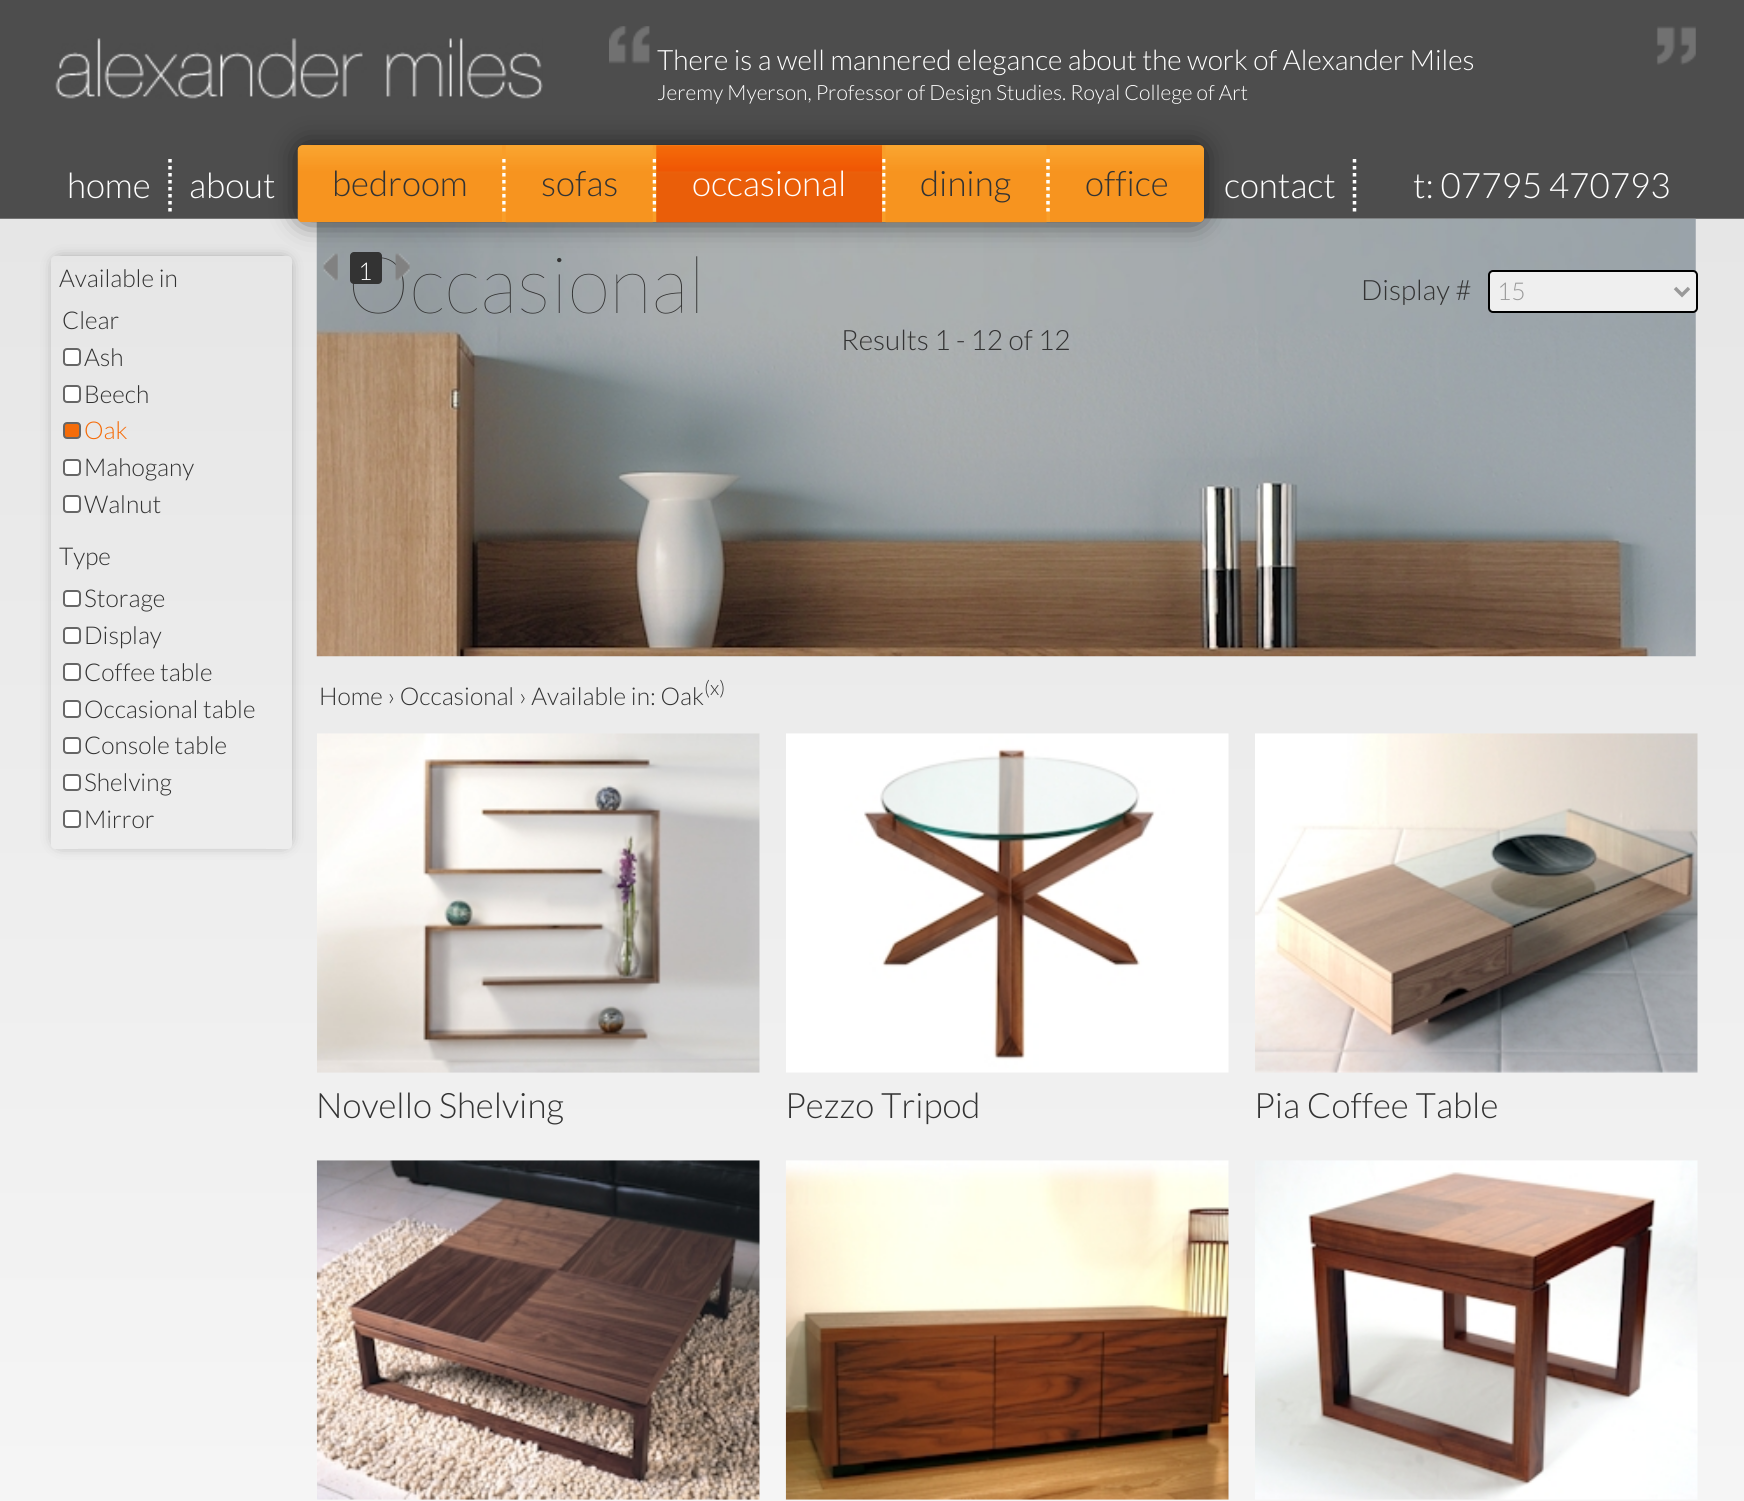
#include <cairo.h>
#include <math.h>
#include <stddef.h>


static void ink(cairo_t *ctx, unsigned color) {
    cairo_set_source_rgb(ctx, (color >> 16) / 255.0, (color >> 8 & 255) / 255.0, (color & 255) / 255.0);
}

static void round_path(cairo_t *ctx, double x, double y, double w, double h, double r) {
    cairo_new_sub_path(ctx);
    cairo_arc(ctx, x + w - r, y + h - r, r, 0, M_PI / 2);
    cairo_arc(ctx, x + r, y + h - r, r, M_PI / 2, M_PI);
    cairo_arc(ctx, x + r, y + r, r, M_PI, 1.5 * M_PI);
    cairo_arc(ctx, x + w - r, y + r, r, 1.5 * M_PI, 2 * M_PI);
    cairo_close_path(ctx);
}

static void blur_box(cairo_t *ctx, double x, double y, double w, double h, double r, double blur, double alpha) {
    cairo_push_group_with_content(ctx, CAIRO_CONTENT_ALPHA);
    cairo_set_operator(ctx, CAIRO_OPERATOR_SOURCE);
    for (int i = 15; i >= -15 && fmin(w, h) + blur * i / 3 > 0; i -= 2) {
        double e = blur * i / 6;
        cairo_set_source_rgba(ctx, 0, 0, 0, alpha * erfc((i - 1) / 8.5) / 2);
        round_path(ctx, x - e, y - e, w + 2 * e, h + 2 * e, fmax(0, fmin(r + e + blur * .6, fmin(w, h) / 2 + e)));
        cairo_fill(ctx);
    }
    cairo_pattern_t *soft = cairo_pop_group(ctx);
    cairo_mask(ctx, soft);
    cairo_pattern_destroy(soft);
}

static void paste(cairo_t *ctx, const char *path, double x, double y, double w, double h) {
    cairo_surface_t *image = cairo_image_surface_create_from_png(path);
    cairo_save(ctx);
    cairo_set_source_surface(ctx, image, x, y);
    cairo_rectangle(ctx, x, y, w, h);
    cairo_fill(ctx);
    cairo_restore(ctx);
    cairo_surface_destroy(image);
}

int main(void) {
    cairo_surface_t *surface = cairo_image_surface_create(CAIRO_FORMAT_RGB24, 1744, 1501);
    cairo_t *ctx = cairo_create(surface);
    cairo_font_options_t *options = cairo_font_options_create();
    cairo_font_options_set_hint_metrics(options, CAIRO_HINT_METRICS_OFF);
    cairo_font_options_set_hint_style(options, CAIRO_HINT_STYLE_NONE);
    cairo_set_font_options(ctx, options);
    cairo_set_miter_limit(ctx, 4);
    ink(ctx, 0x4D4D4D);
    cairo_paint(ctx);
    paste(ctx, "media/1.png", 55, 38, 488, 61);
    paste(ctx, "media/2.png", 609, 26, 1087, 39);
    cairo_select_font_face(ctx, "Lato Light", CAIRO_FONT_SLANT_NORMAL, CAIRO_FONT_WEIGHT_NORMAL);
    cairo_set_font_size(ctx, 28);
    ink(ctx, 0xFFFFFF);
    cairo_move_to(ctx, 657, 70);
    cairo_show_text(ctx, "There is a well mannered elegance about the work of Alexander Miles");
    cairo_set_font_size(ctx, 21);
    cairo_move_to(ctx, 657, 100);
    cairo_show_text(ctx, "Jeremy Myerson, Professor of Design Studies. Royal College of Art");
    cairo_set_font_size(ctx, 35);
    cairo_move_to(ctx, 1413, 198);
    cairo_show_text(ctx, "t: 07795 470793");
    cairo_move_to(ctx, 67, 198);
    cairo_show_text(ctx, "home");
    cairo_new_path(ctx);
    cairo_move_to(ctx, 170, 159);
    cairo_line_to(ctx, 170, 213.5);
    cairo_set_line_width(ctx, 3.5);
    cairo_set_dash(ctx, (double[]){3.5, 3.5}, 2, 0);
    cairo_stroke(ctx);
    cairo_move_to(ctx, 189, 198);
    cairo_show_text(ctx, "about");
    paste(ctx, "media/8.png", 0, 218, 1744, 1283);
    paste(ctx, "media/9.png", 316, 218, 1380, 439);
    paste(ctx, "media/10.png", 323, 253, 15, 28);
    ink(ctx, 0x333333);
    round_path(ctx, 350, 252, 32, 32, 4);
    cairo_fill(ctx);
    cairo_select_font_face(ctx, "Lato Thin", CAIRO_FONT_SLANT_NORMAL, CAIRO_FONT_WEIGHT_NORMAL);
    cairo_set_font_size(ctx, 78.75);
    cairo_move_to(ctx, 347, 313);
    cairo_show_text(ctx, "Occasional");
    paste(ctx, "media/11.png", 395, 253, 15, 28);
    ink(ctx, 0x000000);
    blur_box(ctx, 305, 152, 892, 63, 0, 15, 1);
    ink(ctx, 0xF99E29);
    round_path(ctx, 298, 145, 906, 77, 5);
    cairo_fill(ctx);
    paste(ctx, "media/3.png", 297, 145, 205, 78);
    cairo_select_font_face(ctx, "Lato Light", CAIRO_FONT_SLANT_NORMAL, CAIRO_FONT_WEIGHT_NORMAL);
    cairo_set_font_size(ctx, 35);
    ink(ctx, 0x333333);
    cairo_move_to(ctx, 332, 196);
    cairo_show_text(ctx, "bedroom");
    cairo_new_path(ctx);
    cairo_move_to(ctx, 504, 159);
    cairo_line_to(ctx, 504, 213.5);
    ink(ctx, 0xFFFFFF);
    cairo_stroke(ctx);
    paste(ctx, "media/4.png", 505, 145, 148, 78);
    ink(ctx, 0x333333);
    cairo_move_to(ctx, 541, 196);
    cairo_show_text(ctx, "sofas");
    cairo_new_path(ctx);
    cairo_move_to(ctx, 654.5, 159);
    cairo_line_to(ctx, 654.5, 213.5);
    ink(ctx, 0xFFFFFF);
    cairo_stroke(ctx);
    paste(ctx, "media/5.png", 656, 145, 226, 78);
    cairo_move_to(ctx, 692, 196);
    cairo_show_text(ctx, "occasional");
    cairo_new_path(ctx);
    cairo_move_to(ctx, 884, 159);
    cairo_line_to(ctx, 884, 213.5);
    cairo_stroke(ctx);
    paste(ctx, "media/6.png", 885, 145, 162, 78);
    ink(ctx, 0x333333);
    cairo_move_to(ctx, 920, 196);
    cairo_show_text(ctx, "dining");
    cairo_new_path(ctx);
    cairo_move_to(ctx, 1048, 159);
    cairo_line_to(ctx, 1048, 213.5);
    ink(ctx, 0xFFFFFF);
    cairo_stroke(ctx);
    paste(ctx, "media/7.png", 1050, 145, 154, 78);
    ink(ctx, 0x333333);
    cairo_move_to(ctx, 1085, 196);
    cairo_show_text(ctx, "office");
    ink(ctx, 0xFFFFFF);
    cairo_move_to(ctx, 1224, 198);
    cairo_show_text(ctx, "contact");
    cairo_new_path(ctx);
    cairo_move_to(ctx, 1354.5, 159);
    cairo_line_to(ctx, 1354.5, 213.5);
    cairo_stroke(ctx);
    cairo_save(ctx);
    cairo_set_fill_rule(ctx, CAIRO_FILL_RULE_EVEN_ODD);
    cairo_new_path(ctx);
    cairo_move_to(ctx, 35, 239);
    cairo_line_to(ctx, 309, 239);
    cairo_line_to(ctx, 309, 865);
    cairo_line_to(ctx, 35, 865);
    cairo_close_path(ctx);
    cairo_move_to(ctx, 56, 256);
    cairo_line_to(ctx, 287, 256);
    cairo_curve_to(ctx, 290, 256, 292, 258, 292, 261);
    cairo_line_to(ctx, 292, 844);
    cairo_curve_to(ctx, 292, 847, 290, 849, 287, 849);
    cairo_line_to(ctx, 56, 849);
    cairo_curve_to(ctx, 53, 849, 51, 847, 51, 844);
    cairo_line_to(ctx, 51, 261);
    cairo_curve_to(ctx, 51, 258, 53, 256, 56, 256);
    cairo_close_path(ctx);
    cairo_clip(ctx);
    ink(ctx, 0x333333);
    blur_box(ctx, 60, 264, 224, 576, 0, 8, 1);
    cairo_restore(ctx);
    ink(ctx, 0xEAEAEA);
    cairo_rectangle(ctx, 78, 848, 188, 1);
    cairo_fill(ctx);
    cairo_set_font_size(ctx, 24.5);
    ink(ctx, 0x333333);
    cairo_move_to(ctx, 59, 287);
    cairo_show_text(ctx, "Available in");
    cairo_move_to(ctx, 62, 329);
    cairo_show_text(ctx, "Clear");
    ink(ctx, 0xFFFFFF);
    round_path(ctx, 64, 349, 16, 16, 3);
    cairo_fill_preserve(ctx);
    ink(ctx, 0x666666);
    cairo_set_line_width(ctx, 2);
    cairo_set_dash(ctx, NULL, 0, 0);
    cairo_stroke(ctx);
    ink(ctx, 0x333333);
    cairo_move_to(ctx, 84, 366);
    cairo_show_text(ctx, "Ash");
    ink(ctx, 0xFFFFFF);
    round_path(ctx, 64, 386, 16, 16, 3);
    cairo_fill_preserve(ctx);
    ink(ctx, 0x666666);
    cairo_stroke(ctx);
    ink(ctx, 0x333333);
    cairo_move_to(ctx, 84, 403);
    cairo_show_text(ctx, "Beech");
    ink(ctx, 0xF56C09);
    round_path(ctx, 64, 423, 16, 15, 3);
    cairo_fill_preserve(ctx);
    ink(ctx, 0x666666);
    cairo_stroke(ctx);
    ink(ctx, 0xF56C09);
    cairo_move_to(ctx, 84, 439);
    cairo_show_text(ctx, "Oak");
    ink(ctx, 0xFFFFFF);
    round_path(ctx, 64, 460, 16, 15, 3);
    cairo_fill_preserve(ctx);
    ink(ctx, 0x666666);
    cairo_stroke(ctx);
    ink(ctx, 0x333333);
    cairo_move_to(ctx, 84, 476);
    cairo_show_text(ctx, "Mahogany");
    ink(ctx, 0xFFFFFF);
    round_path(ctx, 64, 496, 16, 16, 3);
    cairo_fill_preserve(ctx);
    ink(ctx, 0x666666);
    cairo_stroke(ctx);
    ink(ctx, 0x333333);
    cairo_move_to(ctx, 84, 513);
    cairo_show_text(ctx, "Walnut");
    cairo_move_to(ctx, 59, 565);
    cairo_show_text(ctx, "Type");
    ink(ctx, 0xFFFFFF);
    round_path(ctx, 64, 591, 16, 15, 3);
    cairo_fill_preserve(ctx);
    ink(ctx, 0x666666);
    cairo_stroke(ctx);
    ink(ctx, 0x333333);
    cairo_move_to(ctx, 84, 607);
    cairo_show_text(ctx, "Storage");
    ink(ctx, 0xFFFFFF);
    round_path(ctx, 64, 628, 16, 15, 3);
    cairo_fill_preserve(ctx);
    ink(ctx, 0x666666);
    cairo_stroke(ctx);
    ink(ctx, 0x333333);
    cairo_move_to(ctx, 84, 644);
    cairo_show_text(ctx, "Display");
    ink(ctx, 0xFFFFFF);
    round_path(ctx, 64, 664, 16, 16, 3);
    cairo_fill_preserve(ctx);
    ink(ctx, 0x666666);
    cairo_stroke(ctx);
    ink(ctx, 0x333333);
    cairo_move_to(ctx, 84, 681);
    cairo_show_text(ctx, "Coffee table");
    ink(ctx, 0xFFFFFF);
    round_path(ctx, 64, 701, 16, 16, 3);
    cairo_fill_preserve(ctx);
    ink(ctx, 0x666666);
    cairo_stroke(ctx);
    ink(ctx, 0x333333);
    cairo_move_to(ctx, 84, 718);
    cairo_show_text(ctx, "Occasional table");
    ink(ctx, 0xFFFFFF);
    round_path(ctx, 64, 738, 16, 15, 3);
    cairo_fill_preserve(ctx);
    ink(ctx, 0x666666);
    cairo_stroke(ctx);
    ink(ctx, 0x333333);
    cairo_move_to(ctx, 84, 754);
    cairo_show_text(ctx, "Console table");
    ink(ctx, 0xFFFFFF);
    round_path(ctx, 64, 775, 16, 15, 3);
    cairo_fill_preserve(ctx);
    ink(ctx, 0x666666);
    cairo_stroke(ctx);
    ink(ctx, 0x333333);
    cairo_move_to(ctx, 84, 791);
    cairo_show_text(ctx, "Shelving");
    ink(ctx, 0xFFFFFF);
    round_path(ctx, 64, 811, 16, 16, 3);
    cairo_fill_preserve(ctx);
    ink(ctx, 0x666666);
    cairo_stroke(ctx);
    ink(ctx, 0x333333);
    cairo_move_to(ctx, 84, 828);
    cairo_show_text(ctx, "Mirror");
    ink(ctx, 0xFFFFFF);
    cairo_move_to(ctx, 358, 280);
    cairo_show_text(ctx, "1");
    cairo_set_font_size(ctx, 28);
    ink(ctx, 0x333333);
    cairo_move_to(ctx, 1361, 300);
    cairo_show_text(ctx, "Display #");
    ink(ctx, 0xEFEFEF);
    round_path(ctx, 1489, 271, 208, 41, 4);
    cairo_fill_preserve(ctx);
    ink(ctx, 0x000000);
    cairo_stroke(ctx);
    cairo_new_path(ctx);
    cairo_move_to(ctx, 1675, 288);
    cairo_line_to(ctx, 1682, 295);
    cairo_line_to(ctx, 1689, 288);
    ink(ctx, 0x999999);
    cairo_set_line_width(ctx, 3.5);
    cairo_stroke(ctx);
    cairo_set_font_size(ctx, 24.5);
    cairo_move_to(ctx, 1497, 300);
    cairo_show_text(ctx, "15");
    cairo_set_font_size(ctx, 28);
    ink(ctx, 0x333333);
    cairo_move_to(ctx, 841, 350);
    cairo_show_text(ctx, "Results 1 - 12 of 12");
    cairo_set_font_size(ctx, 24.5);
    cairo_move_to(ctx, 319, 705);
    cairo_show_text(ctx, "Home › Occasional › Available in: Oak");
    cairo_set_font_size(ctx, 20);
    cairo_move_to(ctx, 704, 695);
    cairo_show_text(ctx, "(x)");
    paste(ctx, "media/12.png", 317, 733, 443, 340);
    cairo_set_font_size(ctx, 35);
    cairo_move_to(ctx, 316, 1118);
    cairo_show_text(ctx, "Novello Shelving");
    paste(ctx, "media/13.png", 786, 733, 443, 340);
    cairo_move_to(ctx, 785, 1118);
    cairo_show_text(ctx, "Pezzo Tripod");
    paste(ctx, "media/14.png", 1255, 733, 443, 340);
    cairo_move_to(ctx, 1254, 1118);
    cairo_show_text(ctx, "Pia Coffee Table");
    paste(ctx, "media/15.png", 316, 1160, 444, 340);
    paste(ctx, "media/16.png", 785, 1160, 444, 340);
    paste(ctx, "media/17.png", 1255, 1160, 443, 340);
    cairo_surface_write_to_png(surface, "image.png");
    cairo_font_options_destroy(options);
    cairo_destroy(ctx);
    cairo_surface_destroy(surface);
    return 0;
}
